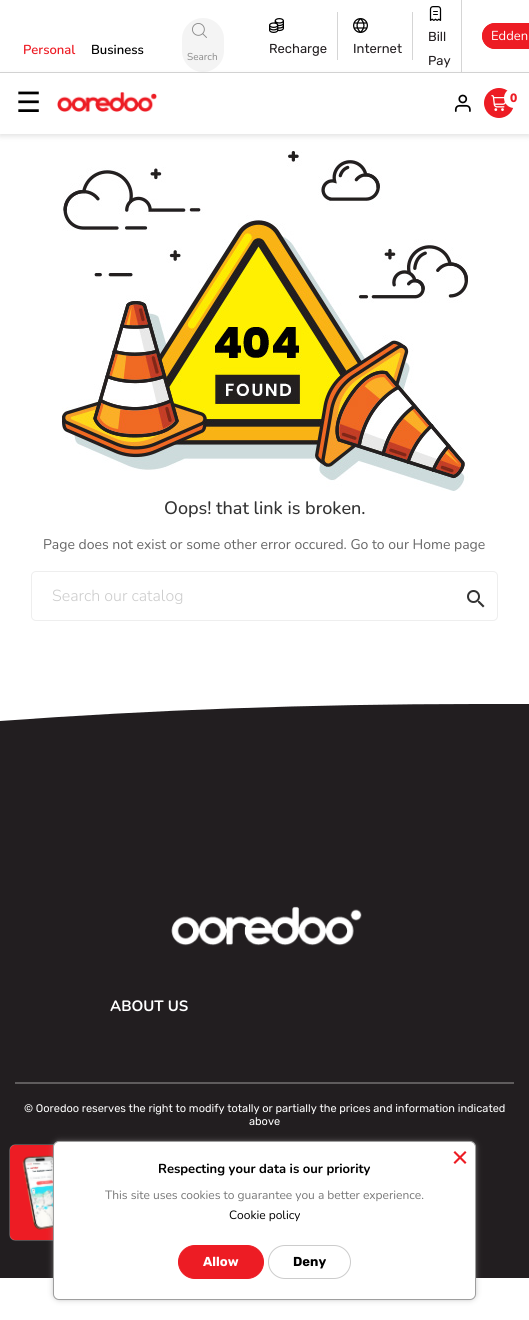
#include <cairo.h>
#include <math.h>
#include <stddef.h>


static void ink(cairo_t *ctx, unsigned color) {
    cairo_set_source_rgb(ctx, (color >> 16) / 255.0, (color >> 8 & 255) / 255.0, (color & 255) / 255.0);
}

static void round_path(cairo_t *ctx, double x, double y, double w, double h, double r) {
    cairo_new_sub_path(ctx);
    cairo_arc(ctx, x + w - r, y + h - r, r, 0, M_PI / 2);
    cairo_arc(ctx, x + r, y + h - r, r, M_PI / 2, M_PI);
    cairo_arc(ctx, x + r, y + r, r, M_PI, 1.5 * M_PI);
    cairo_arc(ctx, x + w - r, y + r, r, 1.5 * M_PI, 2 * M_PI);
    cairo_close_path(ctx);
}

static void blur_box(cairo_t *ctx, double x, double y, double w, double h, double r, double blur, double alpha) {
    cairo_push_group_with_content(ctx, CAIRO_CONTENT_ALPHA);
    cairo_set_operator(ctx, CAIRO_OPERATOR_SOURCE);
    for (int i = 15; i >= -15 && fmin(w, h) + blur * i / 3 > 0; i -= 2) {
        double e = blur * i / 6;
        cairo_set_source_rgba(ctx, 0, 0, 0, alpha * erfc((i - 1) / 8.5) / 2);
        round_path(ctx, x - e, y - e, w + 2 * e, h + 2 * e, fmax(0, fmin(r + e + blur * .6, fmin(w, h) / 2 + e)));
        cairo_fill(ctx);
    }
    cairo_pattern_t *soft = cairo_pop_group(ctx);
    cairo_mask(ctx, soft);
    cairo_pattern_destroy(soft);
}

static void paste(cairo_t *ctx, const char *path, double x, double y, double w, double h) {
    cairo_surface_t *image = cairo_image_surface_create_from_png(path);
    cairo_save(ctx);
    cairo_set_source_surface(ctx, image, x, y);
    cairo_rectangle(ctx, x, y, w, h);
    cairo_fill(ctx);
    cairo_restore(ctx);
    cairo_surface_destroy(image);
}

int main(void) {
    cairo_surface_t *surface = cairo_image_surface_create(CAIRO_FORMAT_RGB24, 529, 1320);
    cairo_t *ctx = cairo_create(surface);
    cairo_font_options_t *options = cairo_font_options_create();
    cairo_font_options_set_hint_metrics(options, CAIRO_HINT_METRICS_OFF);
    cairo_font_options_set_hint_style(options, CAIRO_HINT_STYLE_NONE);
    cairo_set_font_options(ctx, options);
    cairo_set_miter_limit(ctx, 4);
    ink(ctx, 0xFFFFFF);
    cairo_paint(ctx);
    ink(ctx, 0xD6D6D6);
    cairo_rectangle(ctx, 0, 72, 529, 1);
    cairo_fill(ctx);
    cairo_select_font_face(ctx, "Nunito SemiBold", CAIRO_FONT_SLANT_NORMAL, CAIRO_FONT_WEIGHT_NORMAL);
    cairo_set_font_size(ctx, 13);
    ink(ctx, 0xED1C24);
    cairo_move_to(ctx, 23, 54);
    cairo_show_text(ctx, "Personal");
    ink(ctx, 0x000000);
    cairo_move_to(ctx, 91, 54);
    cairo_show_text(ctx, "Business");
    ink(ctx, 0xD5D5D5);
    cairo_rectangle(ctx, 337, 12, 1, 48);
    cairo_fill(ctx);
    paste(ctx, "media/1.png", 269, 18, 15, 15);
    cairo_select_font_face(ctx, "Rubik", CAIRO_FONT_SLANT_NORMAL, CAIRO_FONT_WEIGHT_NORMAL);
    ink(ctx, 0x221E20);
    cairo_move_to(ctx, 269, 53);
    cairo_show_text(ctx, "Recharge");
    ink(ctx, 0xD5D5D5);
    cairo_rectangle(ctx, 412, 12, 1, 48);
    cairo_fill(ctx);
    paste(ctx, "media/2.png", 353, 18, 15, 15);
    ink(ctx, 0x221E20);
    cairo_move_to(ctx, 353, 53);
    cairo_show_text(ctx, "Internet");
    ink(ctx, 0xD5D5D5);
    cairo_rectangle(ctx, 461, 0, 1, 72);
    cairo_fill(ctx);
    paste(ctx, "media/3.png", 429, 6, 13, 15);
    ink(ctx, 0x221E20);
    cairo_move_to(ctx, 428, 41);
    cairo_show_text(ctx, "Bill");
    cairo_move_to(ctx, 428, 65);
    cairo_show_text(ctx, "Pay");
    ink(ctx, 0xED1C24);
    cairo_new_path(ctx);
    cairo_move_to(ctx, 495, 23);
    cairo_line_to(ctx, 529, 23);
    cairo_line_to(ctx, 529, 49);
    cairo_line_to(ctx, 495, 49);
    cairo_curve_to(ctx, 488, 49, 482, 43, 482, 36);
    cairo_curve_to(ctx, 482, 29, 488, 23, 495, 23);
    cairo_close_path(ctx);
    cairo_fill(ctx);
    round_path(ctx, 482.5, 23.5, 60, 25, 12.5);
    cairo_set_line_width(ctx, 1);
    cairo_stroke(ctx);
    cairo_select_font_face(ctx, "Nunito", CAIRO_FONT_SLANT_NORMAL, CAIRO_FONT_WEIGHT_NORMAL);
    ink(ctx, 0xFFFFFF);
    cairo_move_to(ctx, 491, 40);
    cairo_show_text(ctx, "Edden");
    ink(ctx, 0xF4F4F4);
    round_path(ctx, 182, 18, 42, 54, 21);
    cairo_fill(ctx);
    paste(ctx, "media/4.png", 192, 23, 15, 15);
    cairo_set_font_size(ctx, 10);
    ink(ctx, 0x898989);
    cairo_move_to(ctx, 187, 60);
    cairo_show_text(ctx, "Search");
    cairo_save(ctx);
    cairo_set_fill_rule(ctx, CAIRO_FILL_RULE_EVEN_ODD);
    cairo_new_path(ctx);
    cairo_move_to(ctx, 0, 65);
    cairo_line_to(ctx, 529, 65);
    cairo_line_to(ctx, 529, 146);
    cairo_line_to(ctx, 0, 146);
    cairo_close_path(ctx);
    cairo_move_to(ctx, 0, 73);
    cairo_line_to(ctx, 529, 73);
    cairo_line_to(ctx, 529, 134);
    cairo_line_to(ctx, 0, 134);
    cairo_close_path(ctx);
    cairo_clip(ctx);
    ink(ctx, 0x000000);
    blur_box(ctx, 0, 75, 529, 61, 0, 3, 0.12);
    cairo_restore(ctx);
    cairo_select_font_face(ctx, "DejaVu Sans", CAIRO_FONT_SLANT_NORMAL, CAIRO_FONT_WEIGHT_NORMAL);
    cairo_set_font_size(ctx, 28);
    ink(ctx, 0x000000);
    cairo_move_to(ctx, 16, 112);
    cairo_show_text(ctx, "☰");
    paste(ctx, "media/5.png", 57, 92, 100, 20);
    paste(ctx, "media/6.png", 454, 94, 17, 18);
    ink(ctx, 0xED1C24);
    cairo_arc(ctx, 499, 103, 15, 0, 2 * M_PI);
    cairo_fill(ctx);
    paste(ctx, "media/7.png", 491, 95, 15, 16);
    ink(ctx, 0xFFFFFF);
    cairo_arc(ctx, 514, 98, 10, 0, 2 * M_PI);
    cairo_fill(ctx);
    cairo_select_font_face(ctx, "Nunito Black", CAIRO_FONT_SLANT_NORMAL, CAIRO_FONT_WEIGHT_NORMAL);
    cairo_set_font_size(ctx, 12);
    ink(ctx, 0xED1C24);
    cairo_move_to(ctx, 510, 102);
    cairo_show_text(ctx, "0");
    paste(ctx, "media/8.png", 62, 151, 406, 340);
    cairo_select_font_face(ctx, "Nunito Medium", CAIRO_FONT_SLANT_NORMAL, CAIRO_FONT_WEIGHT_NORMAL);
    cairo_set_font_size(ctx, 18);
    ink(ctx, 0x333333);
    cairo_move_to(ctx, 164, 514);
    cairo_show_text(ctx, "Oops! that link is broken.");
    cairo_select_font_face(ctx, "Nunito", CAIRO_FONT_SLANT_NORMAL, CAIRO_FONT_WEIGHT_NORMAL);
    cairo_set_font_size(ctx, 14);
    ink(ctx, 0x666666);
    cairo_move_to(ctx, 43, 549);
    cairo_show_text(ctx, "Page does not exist or some other error occured. Go to our Home page");
    round_path(ctx, 31.5, 571.5, 466, 49, 4.5);
    ink(ctx, 0xEEEEEE);
    cairo_stroke(ctx);
    cairo_select_font_face(ctx, "Nunito Light", CAIRO_FONT_SLANT_NORMAL, CAIRO_FONT_WEIGHT_NORMAL);
    cairo_set_font_size(ctx, 16);
    ink(ctx, 0xCCCCCC);
    cairo_move_to(ctx, 52, 601);
    cairo_show_text(ctx, "Search our catalog");
    paste(ctx, "media/9.png", 467, 590, 18, 18);
    ink(ctx, 0x221E20);
    cairo_new_path(ctx);
    cairo_move_to(ctx, 476, 704);
    cairo_line_to(ctx, 529, 704);
    cairo_line_to(ctx, 529, 1072);
    cairo_line_to(ctx, 0, 1072);
    cairo_line_to(ctx, 0, 721);
    cairo_curve_to(ctx, 150, 710, 310, 704, 476, 704);
    cairo_close_path(ctx);
    cairo_fill(ctx);
    paste(ctx, "media/10.png", 171, 906, 191, 40);
    cairo_select_font_face(ctx, "Nunito", CAIRO_FONT_SLANT_NORMAL, CAIRO_FONT_WEIGHT_BOLD);
    cairo_set_font_size(ctx, 15);
    ink(ctx, 0xFFFFFF);
    cairo_move_to(ctx, 110, 1011);
    cairo_show_text(ctx, "ABOUT US");
    ink(ctx, 0x221E20);
    cairo_rectangle(ctx, 0, 1072, 529, 206);
    cairo_fill(ctx);
    ink(ctx, 0x5F5C5D);
    cairo_rectangle(ctx, 15, 1082, 499, 2);
    cairo_fill(ctx);
    cairo_select_font_face(ctx, "Rubik", CAIRO_FONT_SLANT_NORMAL, CAIRO_FONT_WEIGHT_NORMAL);
    cairo_set_font_size(ctx, 11);
    ink(ctx, 0xFFFFFF);
    cairo_move_to(ctx, 24, 1112);
    cairo_show_text(ctx, "© Ooredoo reserves the right to modify totally or partially the prices and information indicated");
    cairo_move_to(ctx, 249, 1125);
    cairo_show_text(ctx, "above");
    ink(ctx, 0xE8E8E8);
    blur_box(ctx, 10, 1145, 250, 95, 5, 0.5, 1);
    ink(ctx, 0xED1C24);
    round_path(ctx, 10.5, 1145.5, 249, 94, 4.5);
    cairo_fill_preserve(ctx);
    cairo_stroke(ctx);
    paste(ctx, "media/11.png", 22, 1155, 31, 75);
    ink(ctx, 0x9E9E9E);
    blur_box(ctx, 55, 1143, 419, 155, 4, 3.5, 1);
    ink(ctx, 0xFFFFFF);
    round_path(ctx, 53.5, 1141.5, 422, 158, 5.5);
    cairo_fill_preserve(ctx);
    ink(ctx, 0x9E9E9E);
    cairo_stroke(ctx);
    ink(ctx, 0xED1C24);
    cairo_new_path(ctx);
    cairo_move_to(ctx, 453.5, 1162.5);
    cairo_line_to(ctx, 465, 1151);
    cairo_line_to(ctx, 466.5, 1152.5);
    cairo_line_to(ctx, 455, 1164);
    cairo_close_path(ctx);
    cairo_fill(ctx);
    cairo_new_path(ctx);
    cairo_move_to(ctx, 455, 1151);
    cairo_line_to(ctx, 466.5, 1162.5);
    cairo_line_to(ctx, 465, 1164);
    cairo_line_to(ctx, 453.5, 1152.5);
    cairo_close_path(ctx);
    cairo_fill(ctx);
    cairo_select_font_face(ctx, "Nunito", CAIRO_FONT_SLANT_NORMAL, CAIRO_FONT_WEIGHT_BOLD);
    cairo_set_font_size(ctx, 13);
    ink(ctx, 0x000000);
    cairo_move_to(ctx, 158, 1173);
    cairo_show_text(ctx, "Respecting your data is our priority");
    cairo_select_font_face(ctx, "Nunito", CAIRO_FONT_SLANT_NORMAL, CAIRO_FONT_WEIGHT_NORMAL);
    cairo_set_font_size(ctx, 12);
    ink(ctx, 0x777777);
    cairo_move_to(ctx, 105, 1199);
    cairo_show_text(ctx, "This site uses cookies to guarantee you a better experience.");
    ink(ctx, 0x000000);
    cairo_move_to(ctx, 229, 1219);
    cairo_show_text(ctx, "Cookie policy");
    ink(ctx, 0xED1C24);
    round_path(ctx, 178.5, 1245.5, 85, 33, 16.5);
    cairo_fill_preserve(ctx);
    cairo_stroke(ctx);
    cairo_select_font_face(ctx, "Rubik", CAIRO_FONT_SLANT_NORMAL, CAIRO_FONT_WEIGHT_BOLD);
    cairo_set_font_size(ctx, 13);
    ink(ctx, 0xFFFFFF);
    cairo_move_to(ctx, 203, 1266);
    cairo_show_text(ctx, "Allow");
    round_path(ctx, 268.5, 1245.5, 82, 33, 16.5);
    ink(ctx, 0xCCCCCC);
    cairo_stroke(ctx);
    ink(ctx, 0x000000);
    cairo_move_to(ctx, 293, 1266);
    cairo_show_text(ctx, "Deny");
    cairo_surface_write_to_png(surface, "image.png");
    cairo_font_options_destroy(options);
    cairo_destroy(ctx);
    cairo_surface_destroy(surface);
    return 0;
}
